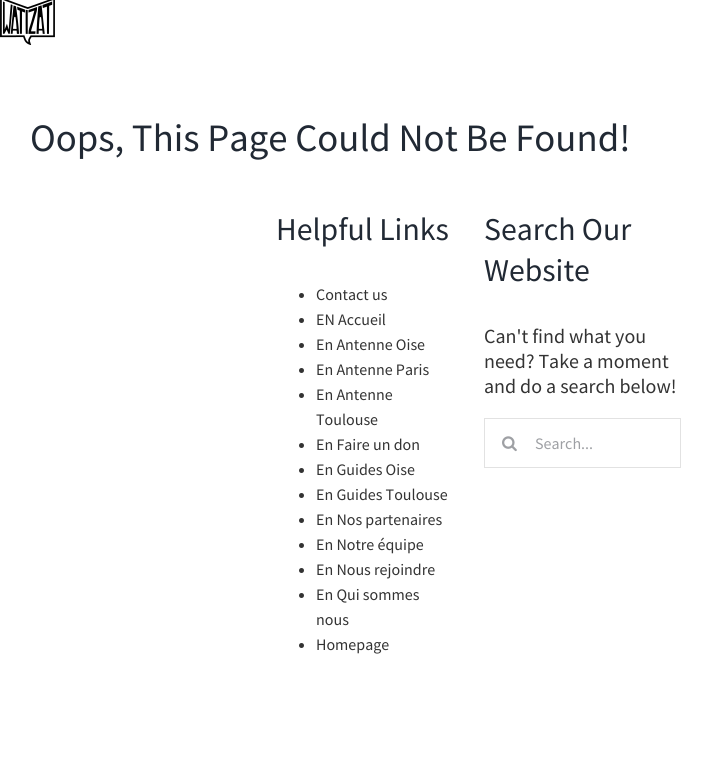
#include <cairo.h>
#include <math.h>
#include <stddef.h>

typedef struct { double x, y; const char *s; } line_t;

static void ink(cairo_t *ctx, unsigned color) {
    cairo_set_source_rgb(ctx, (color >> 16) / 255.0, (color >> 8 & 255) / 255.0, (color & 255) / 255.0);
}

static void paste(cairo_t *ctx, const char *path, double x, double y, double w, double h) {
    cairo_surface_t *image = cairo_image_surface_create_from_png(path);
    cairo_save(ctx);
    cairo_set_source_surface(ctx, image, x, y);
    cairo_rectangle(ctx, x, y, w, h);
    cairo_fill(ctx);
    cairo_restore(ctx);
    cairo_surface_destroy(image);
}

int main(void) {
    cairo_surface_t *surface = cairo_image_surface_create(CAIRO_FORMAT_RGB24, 711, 766);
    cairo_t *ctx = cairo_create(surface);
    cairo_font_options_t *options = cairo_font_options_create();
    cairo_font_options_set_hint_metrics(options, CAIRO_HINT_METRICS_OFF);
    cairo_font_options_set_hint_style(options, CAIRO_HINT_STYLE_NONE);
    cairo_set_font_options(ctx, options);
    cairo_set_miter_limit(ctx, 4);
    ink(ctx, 0xFFFFFF);
    cairo_paint(ctx);
    paste(ctx, "media/1.png", 0, 0, 55, 45);
    cairo_select_font_face(ctx, "Source Sans Pro", CAIRO_FONT_SLANT_NORMAL, CAIRO_FONT_WEIGHT_NORMAL);
    cairo_set_font_size(ctx, 38.75);
    ink(ctx, 0x212934);
    cairo_move_to(ctx, 30, 151);
    cairo_show_text(ctx, "Oops, This Page Could Not Be Found!");
    cairo_set_font_size(ctx, 31.75);
    cairo_move_to(ctx, 276, 240);
    cairo_show_text(ctx, "Helpful Links");
    ink(ctx, 0x333333);
    cairo_new_path(ctx);
    cairo_arc(ctx, 301.5, 295.5, 2.5, 0, 2 * M_PI);
    cairo_fill(ctx);
    cairo_set_font_size(ctx, 16);
    cairo_move_to(ctx, 316, 300);
    cairo_show_text(ctx, "Contact us");
    cairo_new_path(ctx);
    cairo_arc(ctx, 301.5, 320.5, 2.5, 0, 2 * M_PI);
    cairo_fill(ctx);
    cairo_move_to(ctx, 316, 325);
    cairo_show_text(ctx, "EN Accueil");
    cairo_new_path(ctx);
    cairo_arc(ctx, 301.5, 345.5, 2.5, 0, 2 * M_PI);
    cairo_fill(ctx);
    cairo_move_to(ctx, 316, 350);
    cairo_show_text(ctx, "En Antenne Oise");
    cairo_new_path(ctx);
    cairo_arc(ctx, 301.5, 370.5, 2.5, 0, 2 * M_PI);
    cairo_fill(ctx);
    cairo_move_to(ctx, 316, 375);
    cairo_show_text(ctx, "En Antenne Paris");
    cairo_new_path(ctx);
    cairo_arc(ctx, 301.5, 395.5, 2.5, 0, 2 * M_PI);
    cairo_fill(ctx);
    cairo_move_to(ctx, 316, 400);
    cairo_show_text(ctx, "En Antenne");
    cairo_move_to(ctx, 316, 425);
    cairo_show_text(ctx, "Toulouse");
    cairo_new_path(ctx);
    cairo_arc(ctx, 301.5, 445.5, 2.5, 0, 2 * M_PI);
    cairo_fill(ctx);
    cairo_move_to(ctx, 316, 450);
    cairo_show_text(ctx, "En Faire un don");
    cairo_new_path(ctx);
    cairo_arc(ctx, 301.5, 470.5, 2.5, 0, 2 * M_PI);
    cairo_fill(ctx);
    cairo_move_to(ctx, 316, 475);
    cairo_show_text(ctx, "En Guides Oise");
    cairo_new_path(ctx);
    cairo_arc(ctx, 301.5, 495.5, 2.5, 0, 2 * M_PI);
    cairo_fill(ctx);
    cairo_move_to(ctx, 316, 500);
    cairo_show_text(ctx, "En Guides Toulouse");
    cairo_new_path(ctx);
    cairo_arc(ctx, 301.5, 520.5, 2.5, 0, 2 * M_PI);
    cairo_fill(ctx);
    cairo_move_to(ctx, 316, 525);
    cairo_show_text(ctx, "En Nos partenaires");
    cairo_new_path(ctx);
    cairo_arc(ctx, 301.5, 545.5, 2.5, 0, 2 * M_PI);
    cairo_fill(ctx);
    cairo_move_to(ctx, 316, 550);
    cairo_show_text(ctx, "En Notre équipe");
    cairo_new_path(ctx);
    cairo_arc(ctx, 301.5, 570.5, 2.5, 0, 2 * M_PI);
    cairo_fill(ctx);
    cairo_move_to(ctx, 316, 575);
    cairo_show_text(ctx, "En Nous rejoindre");
    cairo_new_path(ctx);
    cairo_arc(ctx, 301.5, 595.5, 2.5, 0, 2 * M_PI);
    cairo_fill(ctx);
    cairo_move_to(ctx, 316, 600);
    cairo_show_text(ctx, "En Qui sommes");
    cairo_move_to(ctx, 316, 625);
    cairo_show_text(ctx, "nous");
    cairo_new_path(ctx);
    cairo_arc(ctx, 301.5, 645.5, 2.5, 0, 2 * M_PI);
    cairo_fill(ctx);
    cairo_move_to(ctx, 316, 650);
    cairo_show_text(ctx, "Homepage");
    cairo_set_font_size(ctx, 31.75);
    ink(ctx, 0x212934);
    cairo_move_to(ctx, 484, 240);
    cairo_show_text(ctx, "Search Our");
    cairo_move_to(ctx, 484, 281);
    cairo_show_text(ctx, "Website");
    cairo_set_font_size(ctx, 20);
    ink(ctx, 0x333333);
    {
        static const line_t items[] = {
            {484, 343, "Can't find what you"},
            {484, 368, "need? Take a moment"},
            {484, 393, "and do a search below!"},
        };
        for (size_t i = 0; i < sizeof items / sizeof *items; i++) {
            cairo_move_to(ctx, items[i].x, items[i].y);
            cairo_show_text(ctx, items[i].s);
        }
    }
    cairo_rectangle(ctx, 484.5, 418.5, 196, 49);
    ink(ctx, 0xE2E2E2);
    cairo_set_line_width(ctx, 1);
    cairo_stroke(ctx);
    paste(ctx, "media/2.png", 502, 436, 15, 16);
    cairo_set_font_size(ctx, 16);
    ink(ctx, 0x9EA0A4);
    cairo_move_to(ctx, 535, 449);
    cairo_show_text(ctx, "Search...");
    cairo_surface_write_to_png(surface, "image.png");
    cairo_font_options_destroy(options);
    cairo_destroy(ctx);
    cairo_surface_destroy(surface);
    return 0;
}
